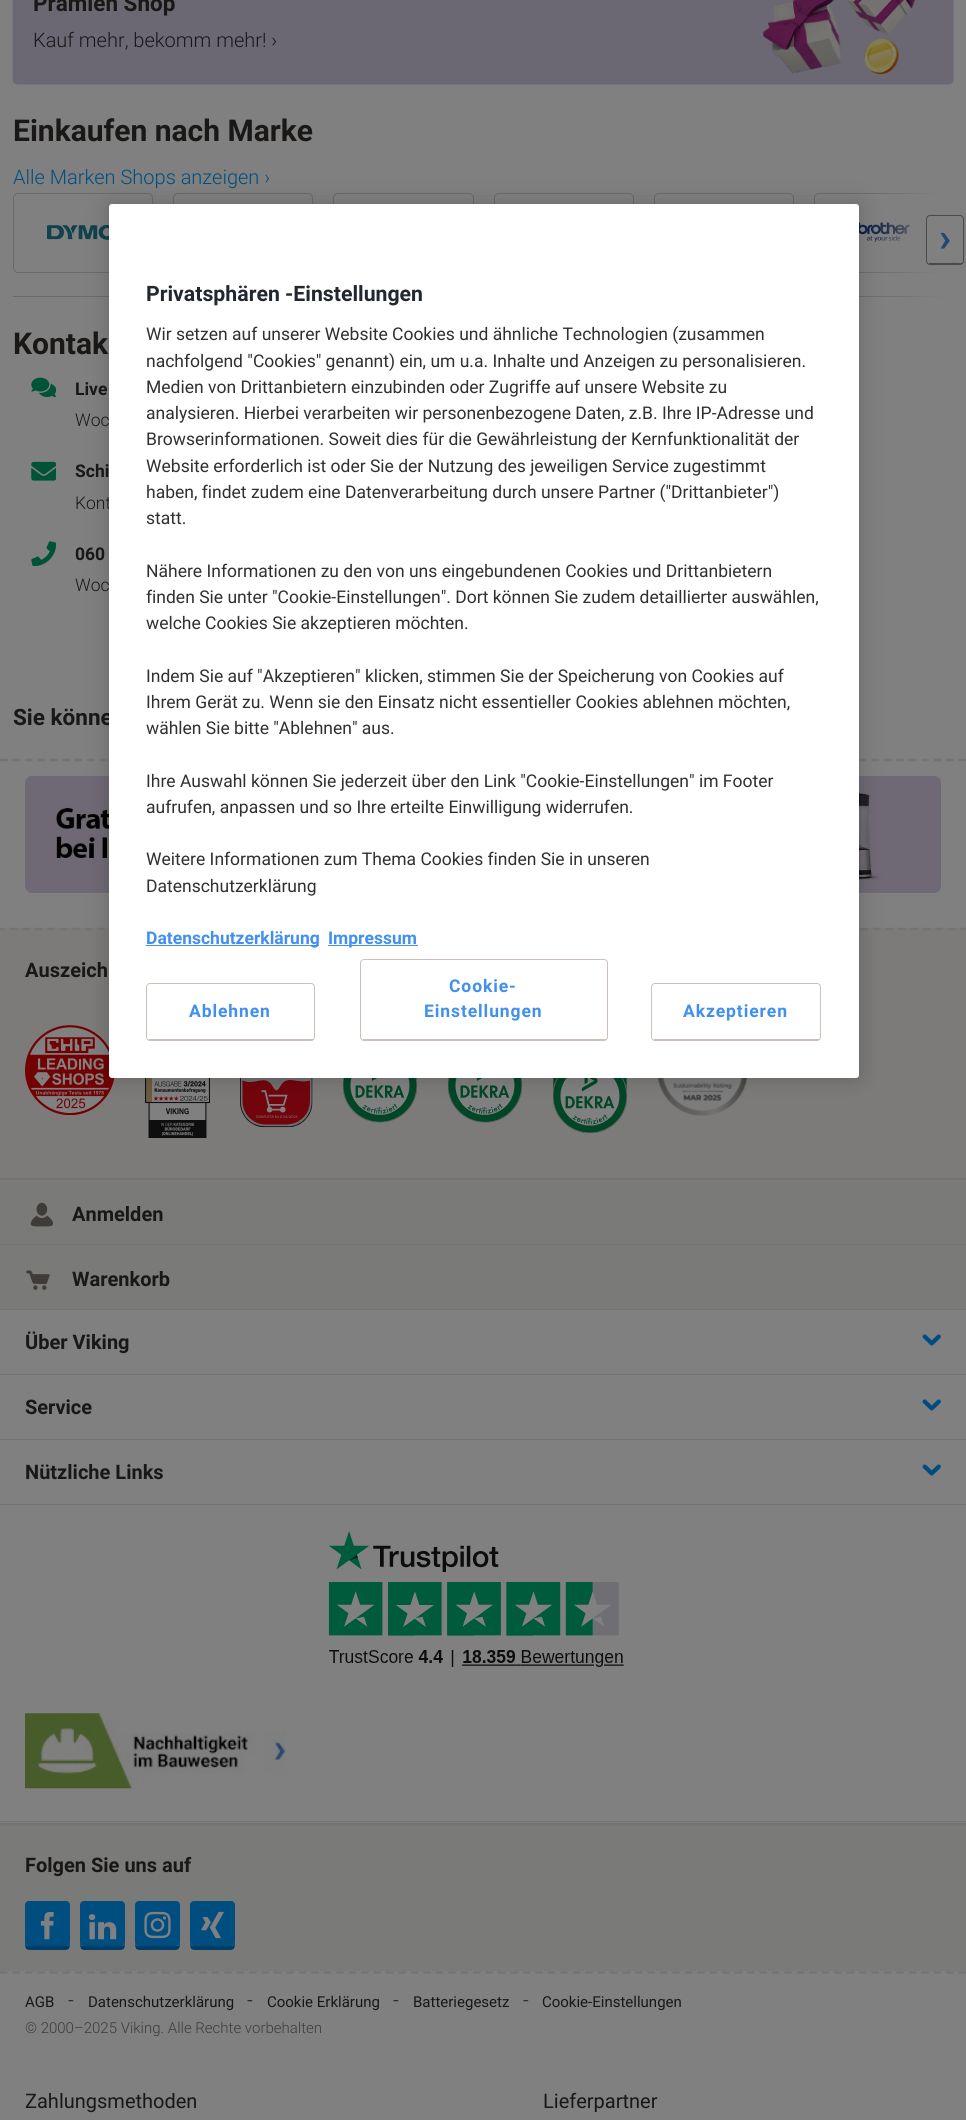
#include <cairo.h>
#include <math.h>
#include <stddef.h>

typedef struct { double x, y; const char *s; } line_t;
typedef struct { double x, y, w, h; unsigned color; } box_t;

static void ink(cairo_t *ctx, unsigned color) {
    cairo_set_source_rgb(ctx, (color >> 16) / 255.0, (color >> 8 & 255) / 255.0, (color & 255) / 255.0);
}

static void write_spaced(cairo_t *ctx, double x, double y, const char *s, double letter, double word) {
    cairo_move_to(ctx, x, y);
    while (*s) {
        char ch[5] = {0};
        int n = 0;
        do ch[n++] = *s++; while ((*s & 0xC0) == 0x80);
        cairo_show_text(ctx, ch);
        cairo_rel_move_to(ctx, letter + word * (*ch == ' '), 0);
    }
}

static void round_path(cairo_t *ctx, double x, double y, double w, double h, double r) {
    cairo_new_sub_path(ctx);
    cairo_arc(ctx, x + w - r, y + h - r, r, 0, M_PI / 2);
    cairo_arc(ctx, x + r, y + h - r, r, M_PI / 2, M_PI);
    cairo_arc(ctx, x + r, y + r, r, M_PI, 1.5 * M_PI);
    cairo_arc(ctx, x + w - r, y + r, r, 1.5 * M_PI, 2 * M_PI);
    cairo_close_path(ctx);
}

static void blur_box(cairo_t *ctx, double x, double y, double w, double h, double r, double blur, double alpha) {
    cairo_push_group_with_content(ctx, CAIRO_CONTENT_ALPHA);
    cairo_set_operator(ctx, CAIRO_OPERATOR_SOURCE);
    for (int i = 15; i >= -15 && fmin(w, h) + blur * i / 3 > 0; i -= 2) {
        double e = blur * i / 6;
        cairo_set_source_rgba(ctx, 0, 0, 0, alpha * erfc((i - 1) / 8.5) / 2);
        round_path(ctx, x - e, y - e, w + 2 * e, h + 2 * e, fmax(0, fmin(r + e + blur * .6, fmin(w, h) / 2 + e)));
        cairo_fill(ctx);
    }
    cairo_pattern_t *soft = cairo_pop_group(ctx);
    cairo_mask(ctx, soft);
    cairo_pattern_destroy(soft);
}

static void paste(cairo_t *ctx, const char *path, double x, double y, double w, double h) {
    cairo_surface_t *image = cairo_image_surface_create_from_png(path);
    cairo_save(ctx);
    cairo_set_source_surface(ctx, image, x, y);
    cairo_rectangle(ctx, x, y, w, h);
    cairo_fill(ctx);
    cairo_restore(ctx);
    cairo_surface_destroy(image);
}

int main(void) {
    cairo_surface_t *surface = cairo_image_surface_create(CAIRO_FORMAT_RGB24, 966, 2120);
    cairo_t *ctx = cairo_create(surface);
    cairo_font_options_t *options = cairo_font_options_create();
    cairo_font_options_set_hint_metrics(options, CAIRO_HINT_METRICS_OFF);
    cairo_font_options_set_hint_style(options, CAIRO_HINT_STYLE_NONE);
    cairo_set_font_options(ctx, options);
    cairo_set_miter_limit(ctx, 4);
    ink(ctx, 0x808080);
    cairo_paint(ctx);
    paste(ctx, "media/1.png", 12, 0, 942, 85);
    cairo_select_font_face(ctx, "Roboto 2", CAIRO_FONT_SLANT_NORMAL, CAIRO_FONT_WEIGHT_BOLD);
    cairo_set_font_size(ctx, 22.5);
    ink(ctx, 0x191817);
    cairo_move_to(ctx, 33, 11);
    cairo_show_text(ctx, "Prämien Shop");
    cairo_select_font_face(ctx, "Roboto Light", CAIRO_FONT_SLANT_NORMAL, CAIRO_FONT_WEIGHT_NORMAL);
    cairo_set_font_size(ctx, 20);
    cairo_move_to(ctx, 33, 47);
    cairo_show_text(ctx, "Kauf mehr, bekomm mehr! ›");
    paste(ctx, "media/2.png", 763, 0, 153, 75);
    cairo_select_font_face(ctx, "Roboto", CAIRO_FONT_SLANT_NORMAL, CAIRO_FONT_WEIGHT_BOLD);
    cairo_set_font_size(ctx, 30);
    cairo_move_to(ctx, 13, 141);
    cairo_show_text(ctx, "Einkaufen nach Marke");
    cairo_select_font_face(ctx, "Roboto Light", CAIRO_FONT_SLANT_NORMAL, CAIRO_FONT_WEIGHT_NORMAL);
    cairo_set_font_size(ctx, 20);
    ink(ctx, 0x004D80);
    cairo_move_to(ctx, 13, 184);
    cairo_show_text(ctx, "Alle Marken Shops anzeigen ›");
    round_path(ctx, 13.5, 193.5, 139, 79, 4.5);
    ink(ctx, 0x6C6A68);
    cairo_set_line_width(ctx, 1);
    cairo_stroke(ctx);
    paste(ctx, "media/3.png", 47, 225, 62, 15);
    round_path(ctx, 173.5, 193.5, 139, 79, 4.5);
    cairo_stroke(ctx);
    round_path(ctx, 333.5, 193.5, 140, 79, 4.5);
    cairo_stroke(ctx);
    round_path(ctx, 494.5, 193.5, 139, 79, 4.5);
    cairo_stroke(ctx);
    round_path(ctx, 654.5, 193.5, 139, 79, 4.5);
    cairo_stroke(ctx);
    round_path(ctx, 814.5, 193.5, 139, 79, 4.5);
    cairo_stroke(ctx);
    paste(ctx, "media/4.png", 859, 222, 51, 20);
    cairo_rectangle(ctx, 13, 296, 941, 1);
    cairo_fill(ctx);
    cairo_save(ctx);
    cairo_rectangle(ctx, 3, 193, 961, 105);
    cairo_clip(ctx);
    cairo_set_fill_rule(ctx, CAIRO_FILL_RULE_EVEN_ODD);
    cairo_new_path(ctx);
    cairo_move_to(ctx, 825, 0);
    cairo_line_to(ctx, 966, 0);
    cairo_line_to(ctx, 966, 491);
    cairo_line_to(ctx, 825, 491);
    cairo_close_path(ctx);
    cairo_move_to(ctx, 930, 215);
    cairo_line_to(ctx, 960, 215);
    cairo_curve_to(ctx, 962, 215, 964, 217, 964, 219);
    cairo_line_to(ctx, 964, 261);
    cairo_curve_to(ctx, 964, 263, 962, 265, 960, 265);
    cairo_line_to(ctx, 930, 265);
    cairo_curve_to(ctx, 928, 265, 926, 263, 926, 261);
    cairo_line_to(ctx, 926, 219);
    cairo_curve_to(ctx, 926, 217, 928, 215, 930, 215);
    cairo_close_path(ctx);
    cairo_clip(ctx);
    ink(ctx, 0x808080);
    blur_box(ctx, 901, 65, 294, 350, 154, 25, 1);
    cairo_restore(ctx);
    ink(ctx, 0x808080);
    cairo_new_path(ctx);
    cairo_move_to(ctx, 930, 216);
    cairo_line_to(ctx, 960, 216);
    cairo_curve_to(ctx, 961, 216, 962, 217, 962, 219);
    cairo_line_to(ctx, 962, 261);
    cairo_curve_to(ctx, 962, 262, 961, 262, 960, 262);
    cairo_line_to(ctx, 930, 262);
    cairo_curve_to(ctx, 929, 262, 928, 262, 928, 261);
    cairo_line_to(ctx, 928, 219);
    cairo_curve_to(ctx, 928, 217, 929, 216, 930, 216);
    cairo_close_path(ctx);
    cairo_fill(ctx);
    round_path(ctx, 926.5, 215.5, 37, 49, 3.5);
    ink(ctx, 0x4C4846);
    cairo_stroke(ctx);
    cairo_rectangle(ctx, 929, 263, 34, 1);
    cairo_fill(ctx);
    cairo_select_font_face(ctx, "Roboto 2", CAIRO_FONT_SLANT_NORMAL, CAIRO_FONT_WEIGHT_BOLD);
    cairo_set_font_size(ctx, 40);
    ink(ctx, 0x214877);
    cairo_move_to(ctx, 939, 251);
    cairo_show_text(ctx, "›");
    cairo_select_font_face(ctx, "Roboto", CAIRO_FONT_SLANT_NORMAL, CAIRO_FONT_WEIGHT_BOLD);
    cairo_set_font_size(ctx, 30);
    ink(ctx, 0x191817);
    cairo_move_to(ctx, 13, 354);
    cairo_show_text(ctx, "Kontak");
    paste(ctx, "media/5.png", 31, 377, 25, 21);
    cairo_select_font_face(ctx, "Roboto 2", CAIRO_FONT_SLANT_NORMAL, CAIRO_FONT_WEIGHT_BOLD);
    cairo_set_font_size(ctx, 17.5);
    cairo_move_to(ctx, 75, 395);
    cairo_show_text(ctx, "Live");
    cairo_select_font_face(ctx, "Roboto Light", CAIRO_FONT_SLANT_NORMAL, CAIRO_FONT_WEIGHT_NORMAL);
    cairo_move_to(ctx, 75, 426);
    cairo_show_text(ctx, "Woc");
    paste(ctx, "media/6.png", 31, 461, 25, 20);
    cairo_select_font_face(ctx, "Roboto 2", CAIRO_FONT_SLANT_NORMAL, CAIRO_FONT_WEIGHT_BOLD);
    cairo_move_to(ctx, 75, 477);
    cairo_show_text(ctx, "Schi");
    cairo_select_font_face(ctx, "Roboto Light", CAIRO_FONT_SLANT_NORMAL, CAIRO_FONT_WEIGHT_NORMAL);
    cairo_move_to(ctx, 75, 509);
    cairo_show_text(ctx, "Kont");
    paste(ctx, "media/7.png", 31, 541, 25, 25);
    cairo_select_font_face(ctx, "Roboto 2", CAIRO_FONT_SLANT_NORMAL, CAIRO_FONT_WEIGHT_BOLD);
    cairo_move_to(ctx, 75, 560);
    cairo_show_text(ctx, "060");
    cairo_select_font_face(ctx, "Roboto Light", CAIRO_FONT_SLANT_NORMAL, CAIRO_FONT_WEIGHT_NORMAL);
    cairo_move_to(ctx, 75, 591);
    cairo_show_text(ctx, "Woc");
    cairo_select_font_face(ctx, "Roboto 2", CAIRO_FONT_SLANT_NORMAL, CAIRO_FONT_WEIGHT_BOLD);
    cairo_set_font_size(ctx, 22.5);
    cairo_move_to(ctx, 13, 725);
    cairo_show_text(ctx, "Sie könne");
    cairo_new_path(ctx);
    cairo_move_to(ctx, 0, 760);
    cairo_line_to(ctx, 966, 760);
    ink(ctx, 0x757472);
    cairo_set_line_width(ctx, 2.5);
    cairo_set_dash(ctx, (double[]){7.5, 4.95}, 2, 0);
    cairo_stroke(ctx);
    paste(ctx, "media/8.png", 25, 776, 916, 117);
    ink(ctx, 0x7C7B79);
    cairo_rectangle(ctx, 0, 928, 966, 250);
    cairo_fill(ctx);
    cairo_new_path(ctx);
    cairo_move_to(ctx, -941, 929);
    cairo_line_to(ctx, 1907.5, 929);
    ink(ctx, 0x747371);
    cairo_set_dash(ctx, (double[]){7.5, 5.01}, 2, 0);
    cairo_stroke(ctx);
    cairo_rectangle(ctx, 0, 1178, 966, 1);
    cairo_fill(ctx);
    cairo_set_font_size(ctx, 20);
    ink(ctx, 0x191817);
    cairo_move_to(ctx, 25, 977);
    cairo_show_text(ctx, "Auszeich");
    paste(ctx, "media/9.png", 25, 1025, 90, 90);
    paste(ctx, "media/10.png", 145, 1078, 65, 60);
    paste(ctx, "media/11.png", 240, 1078, 73, 50);
    paste(ctx, "media/12.png", 343, 1078, 74, 45);
    paste(ctx, "media/13.png", 448, 1078, 74, 45);
    paste(ctx, "media/14.png", 553, 1078, 74, 56);
    paste(ctx, "media/15.png", 657, 1078, 91, 38);
    {
        static const box_t items[] = {
            {0, 1180, 966, 791, 0x7A7A79},
            {0, 1179, 966, 1, 0x757472},
            {0, 1244, 966, 1, 0x757472},
        };
        for (size_t i = 0; i < sizeof items / sizeof *items; i++) {
            ink(ctx, items[i].color);
            cairo_rectangle(ctx, items[i].x, items[i].y, items[i].w, items[i].h);
            cairo_fill(ctx);
        }
    }
    paste(ctx, "media/16.png", 30, 1202, 23, 25);
    ink(ctx, 0x191817);
    cairo_move_to(ctx, 72, 1221);
    cairo_show_text(ctx, "Anmelden");
    ink(ctx, 0x757472);
    cairo_rectangle(ctx, 0, 1309, 966, 1);
    cairo_fill(ctx);
    paste(ctx, "media/17.png", 26, 1270, 24, 20);
    ink(ctx, 0x191817);
    cairo_move_to(ctx, 72, 1286);
    cairo_show_text(ctx, "Warenkorb");
    ink(ctx, 0x808080);
    cairo_rectangle(ctx, 0, 1310, 966, 64);
    cairo_fill(ctx);
    ink(ctx, 0x757472);
    cairo_rectangle(ctx, 0, 1374, 966, 1);
    cairo_fill(ctx);
    ink(ctx, 0x191817);
    cairo_move_to(ctx, 25, 1349);
    cairo_show_text(ctx, "Über Viking");
    paste(ctx, "media/18.png", 922, 1334, 19, 12);
    ink(ctx, 0x808080);
    cairo_rectangle(ctx, 0, 1375, 966, 64);
    cairo_fill(ctx);
    ink(ctx, 0x757472);
    cairo_rectangle(ctx, 0, 1439, 966, 1);
    cairo_fill(ctx);
    ink(ctx, 0x191817);
    cairo_move_to(ctx, 25, 1414);
    cairo_show_text(ctx, "Service");
    paste(ctx, "media/18.png", 922, 1399, 19, 12);
    ink(ctx, 0x808080);
    cairo_rectangle(ctx, 0, 1440, 966, 64);
    cairo_fill(ctx);
    ink(ctx, 0x757472);
    cairo_rectangle(ctx, 0, 1504, 966, 1);
    cairo_fill(ctx);
    ink(ctx, 0x191817);
    cairo_move_to(ctx, 25, 1479);
    cairo_show_text(ctx, "Nützliche Links");
    paste(ctx, "media/18.png", 922, 1464, 19, 12);
    ink(ctx, 0x808080);
    cairo_rectangle(ctx, 0, 1505, 966, 318);
    cairo_fill(ctx);
    ink(ctx, 0x757472);
    cairo_rectangle(ctx, 0, 1821, 966, 1);
    cairo_fill(ctx);
    paste(ctx, "media/19.png", 328, 1531, 296, 136);
    paste(ctx, "media/20.png", 25, 1713, 261, 76);
    cairo_rectangle(ctx, 0, 1823, 966, 3);
    cairo_fill(ctx);
    ink(ctx, 0x191817);
    cairo_move_to(ctx, 25, 1872);
    cairo_show_text(ctx, "Folgen Sie uns auf");
    ink(ctx, 0x003D66);
    cairo_new_path(ctx);
    cairo_move_to(ctx, 25, 1942);
    cairo_curve_to(ctx, 25, 1951, 27, 1950, 35, 1950);
    cairo_line_to(ctx, 60, 1950);
    cairo_curve_to(ctx, 68, 1950, 70, 1951, 70, 1942);
    cairo_curve_to(ctx, 70, 1945, 68, 1946, 66, 1946);
    cairo_line_to(ctx, 29, 1946);
    cairo_curve_to(ctx, 27, 1946, 25, 1945, 25, 1942);
    cairo_close_path(ctx);
    cairo_fill(ctx);
    ink(ctx, 0x004D80);
    round_path(ctx, 25, 1901, 45, 45, 4);
    cairo_fill(ctx);
    paste(ctx, "media/21.png", 40, 1912, 14, 28);
    ink(ctx, 0x003D66);
    cairo_new_path(ctx);
    cairo_move_to(ctx, 80, 1942);
    cairo_curve_to(ctx, 80, 1951, 82, 1950, 90, 1950);
    cairo_line_to(ctx, 115, 1950);
    cairo_curve_to(ctx, 123, 1950, 125, 1951, 125, 1942);
    cairo_curve_to(ctx, 125, 1945, 123, 1946, 121, 1946);
    cairo_line_to(ctx, 84, 1946);
    cairo_curve_to(ctx, 82, 1946, 80, 1945, 80, 1942);
    cairo_close_path(ctx);
    cairo_fill(ctx);
    ink(ctx, 0x004D80);
    round_path(ctx, 80, 1901, 45, 45, 4);
    cairo_fill(ctx);
    paste(ctx, "media/22.png", 88, 1914, 29, 26);
    ink(ctx, 0x003D66);
    cairo_new_path(ctx);
    cairo_move_to(ctx, 135, 1942);
    cairo_curve_to(ctx, 135, 1951, 137, 1950, 145, 1950);
    cairo_line_to(ctx, 170, 1950);
    cairo_curve_to(ctx, 178, 1950, 180, 1951, 180, 1942);
    cairo_curve_to(ctx, 180, 1945, 178, 1946, 176, 1946);
    cairo_line_to(ctx, 139, 1946);
    cairo_curve_to(ctx, 137, 1946, 135, 1945, 135, 1942);
    cairo_close_path(ctx);
    cairo_fill(ctx);
    ink(ctx, 0x004D80);
    round_path(ctx, 135, 1901, 45, 45, 4);
    cairo_fill(ctx);
    paste(ctx, "media/23.png", 144, 1911, 27, 28);
    ink(ctx, 0x003D66);
    cairo_new_path(ctx);
    cairo_move_to(ctx, 190, 1942);
    cairo_curve_to(ctx, 190, 1951, 192, 1950, 200, 1950);
    cairo_line_to(ctx, 225, 1950);
    cairo_curve_to(ctx, 233, 1950, 235, 1951, 235, 1942);
    cairo_curve_to(ctx, 235, 1945, 233, 1946, 231, 1946);
    cairo_line_to(ctx, 194, 1946);
    cairo_curve_to(ctx, 192, 1946, 190, 1945, 190, 1942);
    cairo_close_path(ctx);
    cairo_fill(ctx);
    ink(ctx, 0x004D80);
    round_path(ctx, 190, 1901, 45, 45, 4);
    cairo_fill(ctx);
    paste(ctx, "media/24.png", 201, 1911, 23, 28);
    cairo_new_path(ctx);
    cairo_move_to(ctx, 0, 1972.5);
    cairo_line_to(ctx, 966, 1972.5);
    ink(ctx, 0x757472);
    cairo_set_dash(ctx, (double[]){7.5, 4.95}, 2, 0);
    cairo_stroke(ctx);
    cairo_select_font_face(ctx, "Roboto", CAIRO_FONT_SLANT_NORMAL, CAIRO_FONT_WEIGHT_NORMAL);
    cairo_set_font_size(ctx, 15);
    ink(ctx, 0x191817);
    cairo_move_to(ctx, 25, 2007);
    cairo_show_text(ctx, "AGB");
    cairo_select_font_face(ctx, "Roboto Light", CAIRO_FONT_SLANT_NORMAL, CAIRO_FONT_WEIGHT_NORMAL);
    cairo_set_font_size(ctx, 20);
    cairo_move_to(ctx, 68, 2007);
    cairo_show_text(ctx, "-");
    cairo_select_font_face(ctx, "Roboto", CAIRO_FONT_SLANT_NORMAL, CAIRO_FONT_WEIGHT_NORMAL);
    cairo_set_font_size(ctx, 15);
    cairo_move_to(ctx, 88, 2007);
    cairo_show_text(ctx, "Datenschutzerklärung");
    cairo_select_font_face(ctx, "Roboto Light", CAIRO_FONT_SLANT_NORMAL, CAIRO_FONT_WEIGHT_NORMAL);
    cairo_set_font_size(ctx, 20);
    cairo_move_to(ctx, 247, 2007);
    cairo_show_text(ctx, "-");
    cairo_select_font_face(ctx, "Roboto", CAIRO_FONT_SLANT_NORMAL, CAIRO_FONT_WEIGHT_NORMAL);
    cairo_set_font_size(ctx, 15);
    cairo_move_to(ctx, 267, 2007);
    cairo_show_text(ctx, "Cookie Erklärung");
    cairo_select_font_face(ctx, "Roboto Light", CAIRO_FONT_SLANT_NORMAL, CAIRO_FONT_WEIGHT_NORMAL);
    cairo_set_font_size(ctx, 20);
    cairo_move_to(ctx, 393, 2007);
    cairo_show_text(ctx, "-");
    cairo_select_font_face(ctx, "Roboto", CAIRO_FONT_SLANT_NORMAL, CAIRO_FONT_WEIGHT_NORMAL);
    cairo_set_font_size(ctx, 15);
    cairo_move_to(ctx, 413, 2007);
    cairo_show_text(ctx, "Batteriegesetz");
    cairo_select_font_face(ctx, "Roboto Light", CAIRO_FONT_SLANT_NORMAL, CAIRO_FONT_WEIGHT_NORMAL);
    cairo_set_font_size(ctx, 20);
    cairo_move_to(ctx, 523, 2007);
    cairo_show_text(ctx, "-");
    cairo_select_font_face(ctx, "Roboto", CAIRO_FONT_SLANT_NORMAL, CAIRO_FONT_WEIGHT_NORMAL);
    cairo_set_font_size(ctx, 15);
    cairo_move_to(ctx, 542, 2007);
    cairo_show_text(ctx, "Cookie-Einstellungen");
    cairo_select_font_face(ctx, "Roboto Light", CAIRO_FONT_SLANT_NORMAL, CAIRO_FONT_WEIGHT_NORMAL);
    ink(ctx, 0x3E3B38);
    cairo_move_to(ctx, 25, 2033);
    cairo_show_text(ctx, "© 2000–2025 Viking. Alle Rechte vorbehalten");
    cairo_select_font_face(ctx, "Roboto", CAIRO_FONT_SLANT_NORMAL, CAIRO_FONT_WEIGHT_NORMAL);
    cairo_set_font_size(ctx, 20);
    ink(ctx, 0x191817);
    cairo_move_to(ctx, 25, 2108);
    cairo_show_text(ctx, "Zahlungsmethoden");
    cairo_move_to(ctx, 543, 2108);
    cairo_show_text(ctx, "Lieferpartner");
    ink(ctx, 0x000000);
    blur_box(ctx, 109, 204, 750, 874, 3, 11, 0.2);
    ink(ctx, 0xFFFFFF);
    round_path(ctx, 109, 204, 750, 874, 3);
    cairo_fill(ctx);
    cairo_select_font_face(ctx, "Roboto 2", CAIRO_FONT_SLANT_NORMAL, CAIRO_FONT_WEIGHT_BOLD);
    cairo_set_font_size(ctx, 21.25);
    ink(ctx, 0x222831);
    cairo_move_to(ctx, 146, 301);
    cairo_show_text(ctx, "Privatsphären -Einstellungen");
    cairo_select_font_face(ctx, "Roboto", CAIRO_FONT_SLANT_NORMAL, CAIRO_FONT_WEIGHT_NORMAL);
    cairo_set_font_size(ctx, 17.5);
    ink(ctx, 0x303030);
    {
        static const line_t items[] = {
            {146, 340, "Wir setzen auf unserer Website Cookies und ähnliche Technologien (zusammen"},
            {146, 367, "nachfolgend \"Cookies\" genannt) ein, um u.a. Inhalte und Anzeigen zu personalisieren."},
            {146, 393, "Medien von Drittanbietern einzubinden oder Zugriffe auf unsere Website zu"},
            {146, 419, "analysieren. Hierbei verarbeiten wir personenbezogene Daten, z.B. Ihre IP-Adresse und"},
            {146, 445, "Browserinformationen. Soweit dies für die Gewährleistung der Kernfunktionalität der"},
            {146, 472, "Website erforderlich ist oder Sie der Nutzung des jeweiligen Service zugestimmt"},
            {146, 498, "haben, findet zudem eine Datenverarbeitung durch unsere Partner (\"Drittanbieter\")"},
            {146, 524, "statt."},
            {146, 577, "Nähere Informationen zu den von uns eingebundenen Cookies und Drittanbietern"},
            {146, 603, "finden Sie unter \"Cookie-Einstellungen\". Dort können Sie zudem detaillierter auswählen,"},
            {146, 629, "welche Cookies Sie akzeptieren möchten."},
            {146, 682, "Indem Sie auf \"Akzeptieren\" klicken, stimmen Sie der Speicherung von Cookies auf"},
            {146, 708, "Ihrem Gerät zu. Wenn sie den Einsatz nicht essentieller Cookies ablehnen möchten,"},
            {146, 734, "wählen Sie bitte \"Ablehnen\" aus."},
            {146, 787, "Ihre Auswahl können Sie jederzeit über den Link \"Cookie-Einstellungen\" im Footer"},
            {146, 813, "aufrufen, anpassen und so Ihre erteilte Einwilligung widerrufen."},
            {146, 865, "Weitere Informationen zum Thema Cookies finden Sie in unseren"},
            {146, 892, "Datenschutzerklärung"},
        };
        for (size_t i = 0; i < sizeof items / sizeof *items; i++) {
            cairo_move_to(ctx, items[i].x, items[i].y);
            cairo_show_text(ctx, items[i].s);
        }
    }
    ink(ctx, 0x4290EE);
    cairo_rectangle(ctx, 146, 945, 173, 1);
    cairo_fill(ctx);
    cairo_select_font_face(ctx, "Roboto 2", CAIRO_FONT_SLANT_NORMAL, CAIRO_FONT_WEIGHT_BOLD);
    cairo_move_to(ctx, 146, 944);
    cairo_show_text(ctx, "Datenschutzerklärung");
    cairo_rectangle(ctx, 328, 945, 90, 1);
    cairo_fill(ctx);
    cairo_move_to(ctx, 328, 944);
    cairo_show_text(ctx, "Impressum");
    round_path(ctx, 360.5, 959.5, 247, 81, 3.5);
    ink(ctx, 0xCAC2B8);
    cairo_set_line_width(ctx, 1);
    cairo_set_dash(ctx, NULL, 0, 0);
    cairo_stroke(ctx);
    cairo_rectangle(ctx, 363, 1039, 243, 1);
    cairo_fill(ctx);
    ink(ctx, 0x4290EE);
    write_spaced(ctx, 449, 992, "Cookie-", 0.9, 0);
    write_spaced(ctx, 424, 1017, "Einstellungen", 0.9, 0);
    round_path(ctx, 146.5, 983.5, 168, 57, 3.5);
    ink(ctx, 0xCAC2B8);
    cairo_stroke(ctx);
    cairo_rectangle(ctx, 149, 1039, 165, 1);
    cairo_fill(ctx);
    ink(ctx, 0x4290EE);
    write_spaced(ctx, 189, 1017, "Ablehnen", 0.9, 0);
    round_path(ctx, 651.5, 983.5, 169, 57, 3.5);
    ink(ctx, 0xCAC2B8);
    cairo_stroke(ctx);
    cairo_rectangle(ctx, 654, 1039, 166, 1);
    cairo_fill(ctx);
    ink(ctx, 0x4290EE);
    write_spaced(ctx, 683, 1017, "Akzeptieren", 0.9, 0);
    cairo_surface_write_to_png(surface, "image.png");
    cairo_font_options_destroy(options);
    cairo_destroy(ctx);
    cairo_surface_destroy(surface);
    return 0;
}
